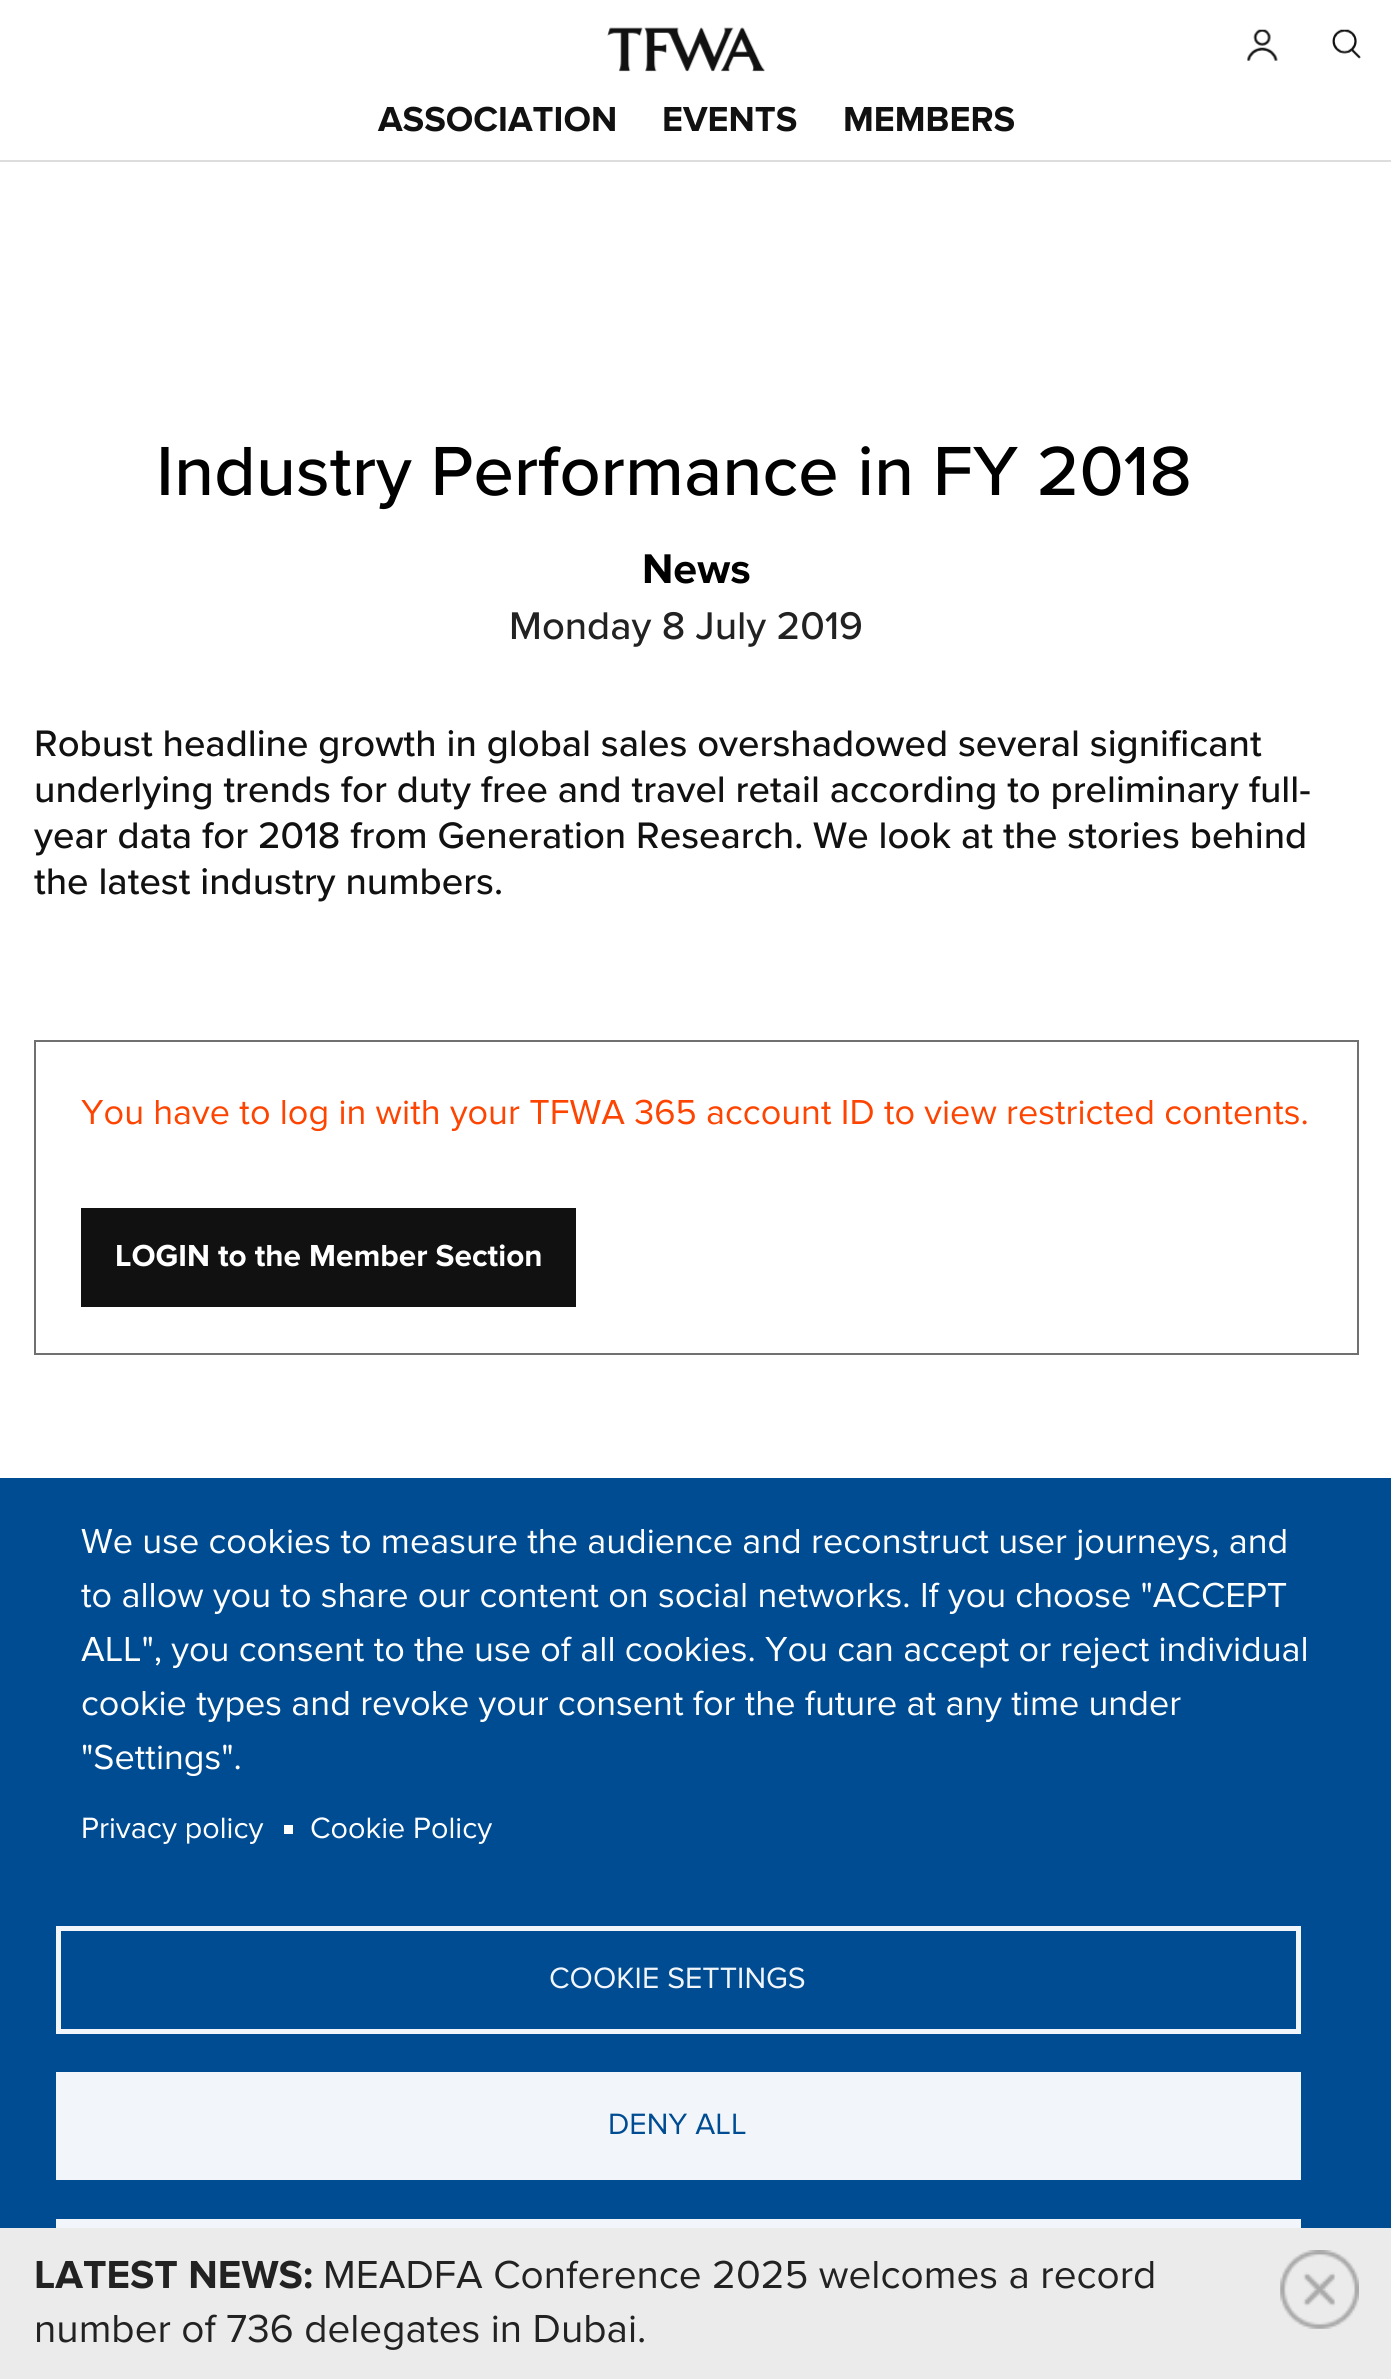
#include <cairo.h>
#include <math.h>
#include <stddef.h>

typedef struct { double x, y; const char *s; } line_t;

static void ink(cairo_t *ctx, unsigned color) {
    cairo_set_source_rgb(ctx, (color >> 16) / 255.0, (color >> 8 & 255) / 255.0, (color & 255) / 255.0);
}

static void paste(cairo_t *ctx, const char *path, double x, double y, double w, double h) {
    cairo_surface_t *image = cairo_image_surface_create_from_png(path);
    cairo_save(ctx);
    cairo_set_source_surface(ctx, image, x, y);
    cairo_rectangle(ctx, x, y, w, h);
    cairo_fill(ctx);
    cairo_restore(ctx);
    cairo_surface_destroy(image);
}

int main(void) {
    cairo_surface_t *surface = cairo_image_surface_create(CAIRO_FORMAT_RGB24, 1391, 2379);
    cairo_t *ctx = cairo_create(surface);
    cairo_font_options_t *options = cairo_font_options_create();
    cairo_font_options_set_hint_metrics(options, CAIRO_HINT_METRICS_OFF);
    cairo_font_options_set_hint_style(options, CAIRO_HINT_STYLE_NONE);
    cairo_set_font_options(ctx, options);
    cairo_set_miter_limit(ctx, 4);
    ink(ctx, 0xFFFFFF);
    cairo_paint(ctx);
    paste(ctx, "media/1.png", 607, 27, 158, 45);
    paste(ctx, "media/2.png", 1247, 29, 31, 32);
    paste(ctx, "media/3.png", 1332, 29, 29, 30);
    ink(ctx, 0xDDDDDD);
    cairo_rectangle(ctx, 0, 160, 1391, 2);
    cairo_fill(ctx);
    cairo_select_font_face(ctx, "Proxima Nova", CAIRO_FONT_SLANT_NORMAL, CAIRO_FONT_WEIGHT_BOLD);
    cairo_set_font_size(ctx, 36);
    ink(ctx, 0x111111);
    {
        static const line_t items[] = {
            {378, 131, "ASSOCIATION"},
            {662, 131, "EVENTS"},
            {843, 131, "MEMBERS"},
        };
        for (size_t i = 0; i < sizeof items / sizeof *items; i++) {
            cairo_move_to(ctx, items[i].x, items[i].y);
            cairo_show_text(ctx, items[i].s);
        }
    }
    cairo_select_font_face(ctx, "Proxima Nova Medium", CAIRO_FONT_SLANT_NORMAL, CAIRO_FONT_WEIGHT_NORMAL);
    cairo_set_font_size(ctx, 72);
    ink(ctx, 0x000000);
    cairo_move_to(ctx, 156, 495);
    cairo_show_text(ctx, "Industry Performance in FY 2018");
    cairo_select_font_face(ctx, "Proxima Nova", CAIRO_FONT_SLANT_NORMAL, CAIRO_FONT_WEIGHT_BOLD);
    cairo_set_font_size(ctx, 43);
    cairo_move_to(ctx, 642, 583);
    cairo_show_text(ctx, "News");
    cairo_select_font_face(ctx, "Proxima Nova Medium", CAIRO_FONT_SLANT_NORMAL, CAIRO_FONT_WEIGHT_NORMAL);
    cairo_set_font_size(ctx, 40);
    ink(ctx, 0x222222);
    cairo_move_to(ctx, 509, 639);
    cairo_show_text(ctx, "Monday 8 July 2019");
    cairo_set_font_size(ctx, 38.25);
    ink(ctx, 0x111111);
    {
        static const line_t items[] = {
            {34, 756, "Robust headline growth in global sales overshadowed several significant"},
            {34, 802, "underlying trends for duty free and travel retail according to preliminary full-"},
            {34, 848, "year data for 2018 from Generation Research. We look at the stories behind"},
            {34, 894, "the latest industry numbers."},
        };
        for (size_t i = 0; i < sizeof items / sizeof *items; i++) {
            cairo_move_to(ctx, items[i].x, items[i].y);
            cairo_show_text(ctx, items[i].s);
        }
    }
    cairo_rectangle(ctx, 35, 1041, 1323, 313);
    ink(ctx, 0x707070);
    cairo_stroke(ctx);
    cairo_select_font_face(ctx, "Proxima Nova", CAIRO_FONT_SLANT_NORMAL, CAIRO_FONT_WEIGHT_NORMAL);
    cairo_set_font_size(ctx, 36);
    ink(ctx, 0xFD4400);
    cairo_move_to(ctx, 81, 1124);
    cairo_show_text(ctx, "You have to log in with your TFWA 365 account ID to view restricted contents.");
    ink(ctx, 0x111111);
    cairo_rectangle(ctx, 81, 1208, 495, 99);
    cairo_fill(ctx);
    cairo_select_font_face(ctx, "Proxima Nova", CAIRO_FONT_SLANT_NORMAL, CAIRO_FONT_WEIGHT_BOLD);
    cairo_set_font_size(ctx, 31.5);
    ink(ctx, 0xFFFFFF);
    cairo_move_to(ctx, 115, 1266);
    cairo_show_text(ctx, "LOGIN to the Member Section");
    ink(ctx, 0xEBEBEB);
    cairo_rectangle(ctx, 0, 2228, 1391, 151);
    cairo_fill(ctx);
    cairo_set_font_size(ctx, 40.5);
    ink(ctx, 0x222222);
    cairo_move_to(ctx, 34, 2288);
    cairo_show_text(ctx, "LATEST NEWS:");
    cairo_select_font_face(ctx, "Proxima Nova", CAIRO_FONT_SLANT_NORMAL, CAIRO_FONT_WEIGHT_NORMAL);
    cairo_move_to(ctx, 323, 2288);
    cairo_show_text(ctx, "MEADFA Conference 2025 welcomes a record");
    cairo_move_to(ctx, 34, 2342);
    cairo_show_text(ctx, "number of 736 delegates in Dubai.");
    paste(ctx, "media/4.png", 1280, 2250, 79, 79);
    ink(ctx, 0x004C93);
    cairo_rectangle(ctx, 0, 1478, 1391, 750);
    cairo_fill(ctx);
    cairo_set_font_size(ctx, 36);
    ink(ctx, 0xFFFFFF);
    {
        static const line_t items[] = {
            {81, 1553, "We use cookies to measure the audience and reconstruct user journeys, and"},
            {81, 1607, "to allow you to share our content on social networks. If you choose \"ACCEPT"},
            {81, 1661, "ALL\", you consent to the use of all cookies. You can accept or reject individual"},
            {81, 1715, "cookie types and revoke your consent for the future at any time under"},
            {81, 1769, "\"Settings\"."},
        };
        for (size_t i = 0; i < sizeof items / sizeof *items; i++) {
            cairo_move_to(ctx, items[i].x, items[i].y);
            cairo_show_text(ctx, items[i].s);
        }
    }
    cairo_set_font_size(ctx, 30.5);
    cairo_move_to(ctx, 81, 1838);
    cairo_show_text(ctx, "Privacy policy");
    cairo_rectangle(ctx, 284, 1825, 9, 9);
    cairo_fill(ctx);
    cairo_move_to(ctx, 310, 1838);
    cairo_show_text(ctx, "Cookie Policy");
    cairo_rectangle(ctx, 58.5, 1928.5, 1240, 103);
    ink(ctx, 0xF2F6FA);
    cairo_set_line_width(ctx, 5);
    cairo_stroke(ctx);
    cairo_move_to(ctx, 549, 1988);
    cairo_show_text(ctx, "COOKIE SETTINGS");
    cairo_rectangle(ctx, 56, 2072, 1245, 108);
    cairo_fill(ctx);
    ink(ctx, 0x004C93);
    cairo_move_to(ctx, 608, 2134);
    cairo_show_text(ctx, "DENY ALL");
    ink(ctx, 0xF2F6FA);
    cairo_rectangle(ctx, 56, 2219, 1245, 9);
    cairo_fill(ctx);
    cairo_surface_write_to_png(surface, "image.png");
    cairo_font_options_destroy(options);
    cairo_destroy(ctx);
    cairo_surface_destroy(surface);
    return 0;
}
